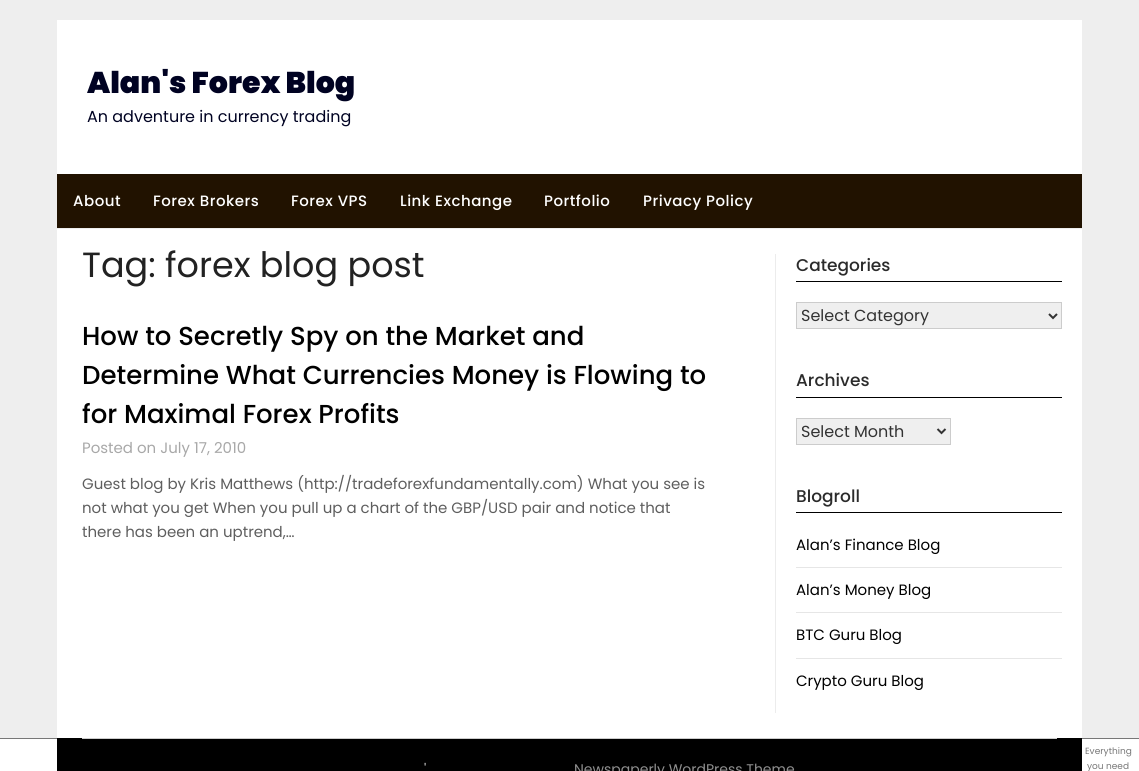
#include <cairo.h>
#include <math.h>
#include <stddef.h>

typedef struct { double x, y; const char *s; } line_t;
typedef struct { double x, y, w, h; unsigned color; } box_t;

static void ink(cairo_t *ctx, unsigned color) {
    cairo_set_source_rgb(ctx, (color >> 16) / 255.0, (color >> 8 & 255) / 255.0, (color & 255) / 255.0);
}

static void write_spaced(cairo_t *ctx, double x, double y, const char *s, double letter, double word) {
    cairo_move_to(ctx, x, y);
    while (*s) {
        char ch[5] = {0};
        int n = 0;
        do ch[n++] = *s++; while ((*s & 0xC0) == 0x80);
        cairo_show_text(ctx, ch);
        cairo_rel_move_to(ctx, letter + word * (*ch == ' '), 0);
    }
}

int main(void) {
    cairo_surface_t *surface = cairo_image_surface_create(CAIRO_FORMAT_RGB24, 1139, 771);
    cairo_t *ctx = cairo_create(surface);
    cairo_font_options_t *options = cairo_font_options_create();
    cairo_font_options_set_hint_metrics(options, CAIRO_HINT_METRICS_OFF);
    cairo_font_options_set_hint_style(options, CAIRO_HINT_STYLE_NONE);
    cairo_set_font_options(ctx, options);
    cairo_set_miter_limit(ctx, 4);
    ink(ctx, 0xEEEEEE);
    cairo_paint(ctx);
    ink(ctx, 0xFFFFFF);
    cairo_rectangle(ctx, 57, 20, 1025, 154);
    cairo_fill(ctx);
    cairo_select_font_face(ctx, "Poppins Black", CAIRO_FONT_SLANT_NORMAL, CAIRO_FONT_WEIGHT_NORMAL);
    cairo_set_font_size(ctx, 30);
    ink(ctx, 0x000222);
    cairo_move_to(ctx, 87, 93);
    cairo_show_text(ctx, "Alan's Forex Blog");
    cairo_select_font_face(ctx, "Poppins", CAIRO_FONT_SLANT_NORMAL, CAIRO_FONT_WEIGHT_NORMAL);
    cairo_set_font_size(ctx, 16);
    cairo_move_to(ctx, 87, 122);
    cairo_show_text(ctx, "An adventure in currency trading");
    ink(ctx, 0x211200);
    cairo_rectangle(ctx, 57, 174, 1025, 54);
    cairo_fill(ctx);
    cairo_select_font_face(ctx, "Poppins Medium", CAIRO_FONT_SLANT_NORMAL, CAIRO_FONT_WEIGHT_NORMAL);
    cairo_set_font_size(ctx, 15);
    ink(ctx, 0xFFFFFF);
    {
        static const line_t items[] = {
            {73, 206, "About"},
            {153, 206, "Forex Brokers"},
            {291, 206, "Forex VPS"},
            {400, 206, "Link Exchange"},
            {544, 206, "Portfolio"},
            {643, 206, "Privacy Policy"},
        };
        for (size_t i = 0; i < sizeof items / sizeof *items; i++) {
            write_spaced(ctx, items[i].x, items[i].y, items[i].s, 0.5, 0);
        }
    }
    cairo_rectangle(ctx, 57, 229, 1025, 509);
    cairo_fill(ctx);
    cairo_select_font_face(ctx, "Poppins", CAIRO_FONT_SLANT_NORMAL, CAIRO_FONT_WEIGHT_NORMAL);
    cairo_set_font_size(ctx, 35);
    ink(ctx, 0x222222);
    cairo_move_to(ctx, 82, 277);
    cairo_show_text(ctx, "Tag: forex blog post");
    cairo_select_font_face(ctx, "Poppins Medium", CAIRO_FONT_SLANT_NORMAL, CAIRO_FONT_WEIGHT_NORMAL);
    cairo_set_font_size(ctx, 26);
    ink(ctx, 0x000000);
    {
        static const line_t items[] = {
            {82, 345, "How to Secretly Spy on the Market and"},
            {82, 384, "Determine What Currencies Money is Flowing to"},
            {82, 423, "for Maximal Forex Profits"},
        };
        for (size_t i = 0; i < sizeof items / sizeof *items; i++) {
            cairo_move_to(ctx, items[i].x, items[i].y);
            cairo_show_text(ctx, items[i].s);
        }
    }
    cairo_select_font_face(ctx, "Poppins", CAIRO_FONT_SLANT_NORMAL, CAIRO_FONT_WEIGHT_NORMAL);
    cairo_set_font_size(ctx, 15);
    ink(ctx, 0xA8A8A8);
    cairo_move_to(ctx, 82, 453);
    cairo_show_text(ctx, "Posted on July 17, 2010");
    ink(ctx, 0x5E5E5E);
    {
        static const line_t items[] = {
            {82, 489, "Guest blog by Kris Matthews (http://tradeforexfundamentally.com) What you see is"},
            {82, 513, "not what you get When you pull up a chart of the GBP/USD pair and notice that"},
            {82, 537, "there has been an uptrend,…"},
        };
        for (size_t i = 0; i < sizeof items / sizeof *items; i++) {
            cairo_move_to(ctx, items[i].x, items[i].y);
            cairo_show_text(ctx, items[i].s);
        }
    }
    ink(ctx, 0xECECEC);
    cairo_rectangle(ctx, 775, 254, 1, 459);
    cairo_fill(ctx);
    ink(ctx, 0x000000);
    cairo_rectangle(ctx, 796, 281, 266, 1);
    cairo_fill(ctx);
    cairo_select_font_face(ctx, "Poppins Medium", CAIRO_FONT_SLANT_NORMAL, CAIRO_FONT_WEIGHT_NORMAL);
    cairo_set_font_size(ctx, 17);
    ink(ctx, 0x2B2B2B);
    cairo_move_to(ctx, 796, 271);
    cairo_show_text(ctx, "Categories");
    ink(ctx, 0xEFEFEF);
    cairo_rectangle(ctx, 796.5, 302.5, 265, 26);
    cairo_fill_preserve(ctx);
    ink(ctx, 0xCCCCCC);
    cairo_set_line_width(ctx, 1);
    cairo_stroke(ctx);
    cairo_new_path(ctx);
    cairo_move_to(ctx, 1049, 314);
    cairo_line_to(ctx, 1053, 318);
    cairo_line_to(ctx, 1057, 314);
    ink(ctx, 0x333333);
    cairo_set_line_width(ctx, 2);
    cairo_stroke(ctx);
    cairo_select_font_face(ctx, "Poppins", CAIRO_FONT_SLANT_NORMAL, CAIRO_FONT_WEIGHT_NORMAL);
    cairo_set_font_size(ctx, 16);
    cairo_move_to(ctx, 801, 321);
    cairo_show_text(ctx, "Select Category");
    ink(ctx, 0x000000);
    cairo_rectangle(ctx, 796, 397, 266, 1);
    cairo_fill(ctx);
    cairo_select_font_face(ctx, "Poppins Medium", CAIRO_FONT_SLANT_NORMAL, CAIRO_FONT_WEIGHT_NORMAL);
    cairo_set_font_size(ctx, 17);
    ink(ctx, 0x2B2B2B);
    cairo_move_to(ctx, 796, 386);
    cairo_show_text(ctx, "Archives");
    ink(ctx, 0xEFEFEF);
    cairo_rectangle(ctx, 796.5, 418.5, 154, 26);
    cairo_fill_preserve(ctx);
    ink(ctx, 0xCCCCCC);
    cairo_set_line_width(ctx, 1);
    cairo_stroke(ctx);
    cairo_new_path(ctx);
    cairo_move_to(ctx, 937.5, 429);
    cairo_line_to(ctx, 941.5, 433);
    cairo_line_to(ctx, 945.5, 429);
    ink(ctx, 0x333333);
    cairo_set_line_width(ctx, 2);
    cairo_stroke(ctx);
    cairo_select_font_face(ctx, "Poppins", CAIRO_FONT_SLANT_NORMAL, CAIRO_FONT_WEIGHT_NORMAL);
    cairo_set_font_size(ctx, 16);
    cairo_move_to(ctx, 801, 437);
    cairo_show_text(ctx, "Select Month");
    ink(ctx, 0x000000);
    cairo_rectangle(ctx, 796, 512, 266, 1);
    cairo_fill(ctx);
    cairo_select_font_face(ctx, "Poppins Medium", CAIRO_FONT_SLANT_NORMAL, CAIRO_FONT_WEIGHT_NORMAL);
    cairo_set_font_size(ctx, 17);
    ink(ctx, 0x2B2B2B);
    cairo_move_to(ctx, 796, 502);
    cairo_show_text(ctx, "Blogroll");
    ink(ctx, 0xE6E6E6);
    cairo_rectangle(ctx, 796, 567, 266, 1);
    cairo_fill(ctx);
    cairo_select_font_face(ctx, "Poppins", CAIRO_FONT_SLANT_NORMAL, CAIRO_FONT_WEIGHT_NORMAL);
    cairo_set_font_size(ctx, 15);
    ink(ctx, 0x000000);
    cairo_move_to(ctx, 796, 550);
    cairo_show_text(ctx, "Alan’s Finance Blog");
    ink(ctx, 0xE6E6E6);
    cairo_rectangle(ctx, 796, 612, 266, 1);
    cairo_fill(ctx);
    ink(ctx, 0x000000);
    cairo_move_to(ctx, 796, 595);
    cairo_show_text(ctx, "Alan’s Money Blog");
    ink(ctx, 0xE6E6E6);
    cairo_rectangle(ctx, 796, 658, 266, 1);
    cairo_fill(ctx);
    ink(ctx, 0x000000);
    cairo_move_to(ctx, 796, 640);
    cairo_show_text(ctx, "BTC Guru Blog");
    cairo_move_to(ctx, 796, 686);
    cairo_show_text(ctx, "Crypto Guru Blog");
    {
        static const box_t items[] = {
            {0, 739, 1139, 32, 0xFFFFFF},
            {0, 738, 1139, 1, 0x777777},
            {57, 738, 1025, 33, 0x000000},
            {82, 738, 975, 1, 0xCCCCCC},
        };
        for (size_t i = 0; i < sizeof items / sizeof *items; i++) {
            ink(ctx, items[i].color);
            cairo_rectangle(ctx, items[i].x, items[i].y, items[i].w, items[i].h);
            cairo_fill(ctx);
        }
    }
    cairo_set_font_size(ctx, 14);
    cairo_move_to(ctx, 424, 774);
    cairo_show_text(ctx, "'");
    ink(ctx, 0x8F8F8F);
    cairo_move_to(ctx, 574, 774);
    cairo_show_text(ctx, "Newspaperly WordPress Theme");
    cairo_set_font_size(ctx, 9);
    ink(ctx, 0x777777);
    cairo_move_to(ctx, 1085, 754);
    cairo_show_text(ctx, "Everything");
    cairo_move_to(ctx, 1087, 769);
    cairo_show_text(ctx, "you need");
    cairo_surface_write_to_png(surface, "image.png");
    cairo_font_options_destroy(options);
    cairo_destroy(ctx);
    cairo_surface_destroy(surface);
    return 0;
}
